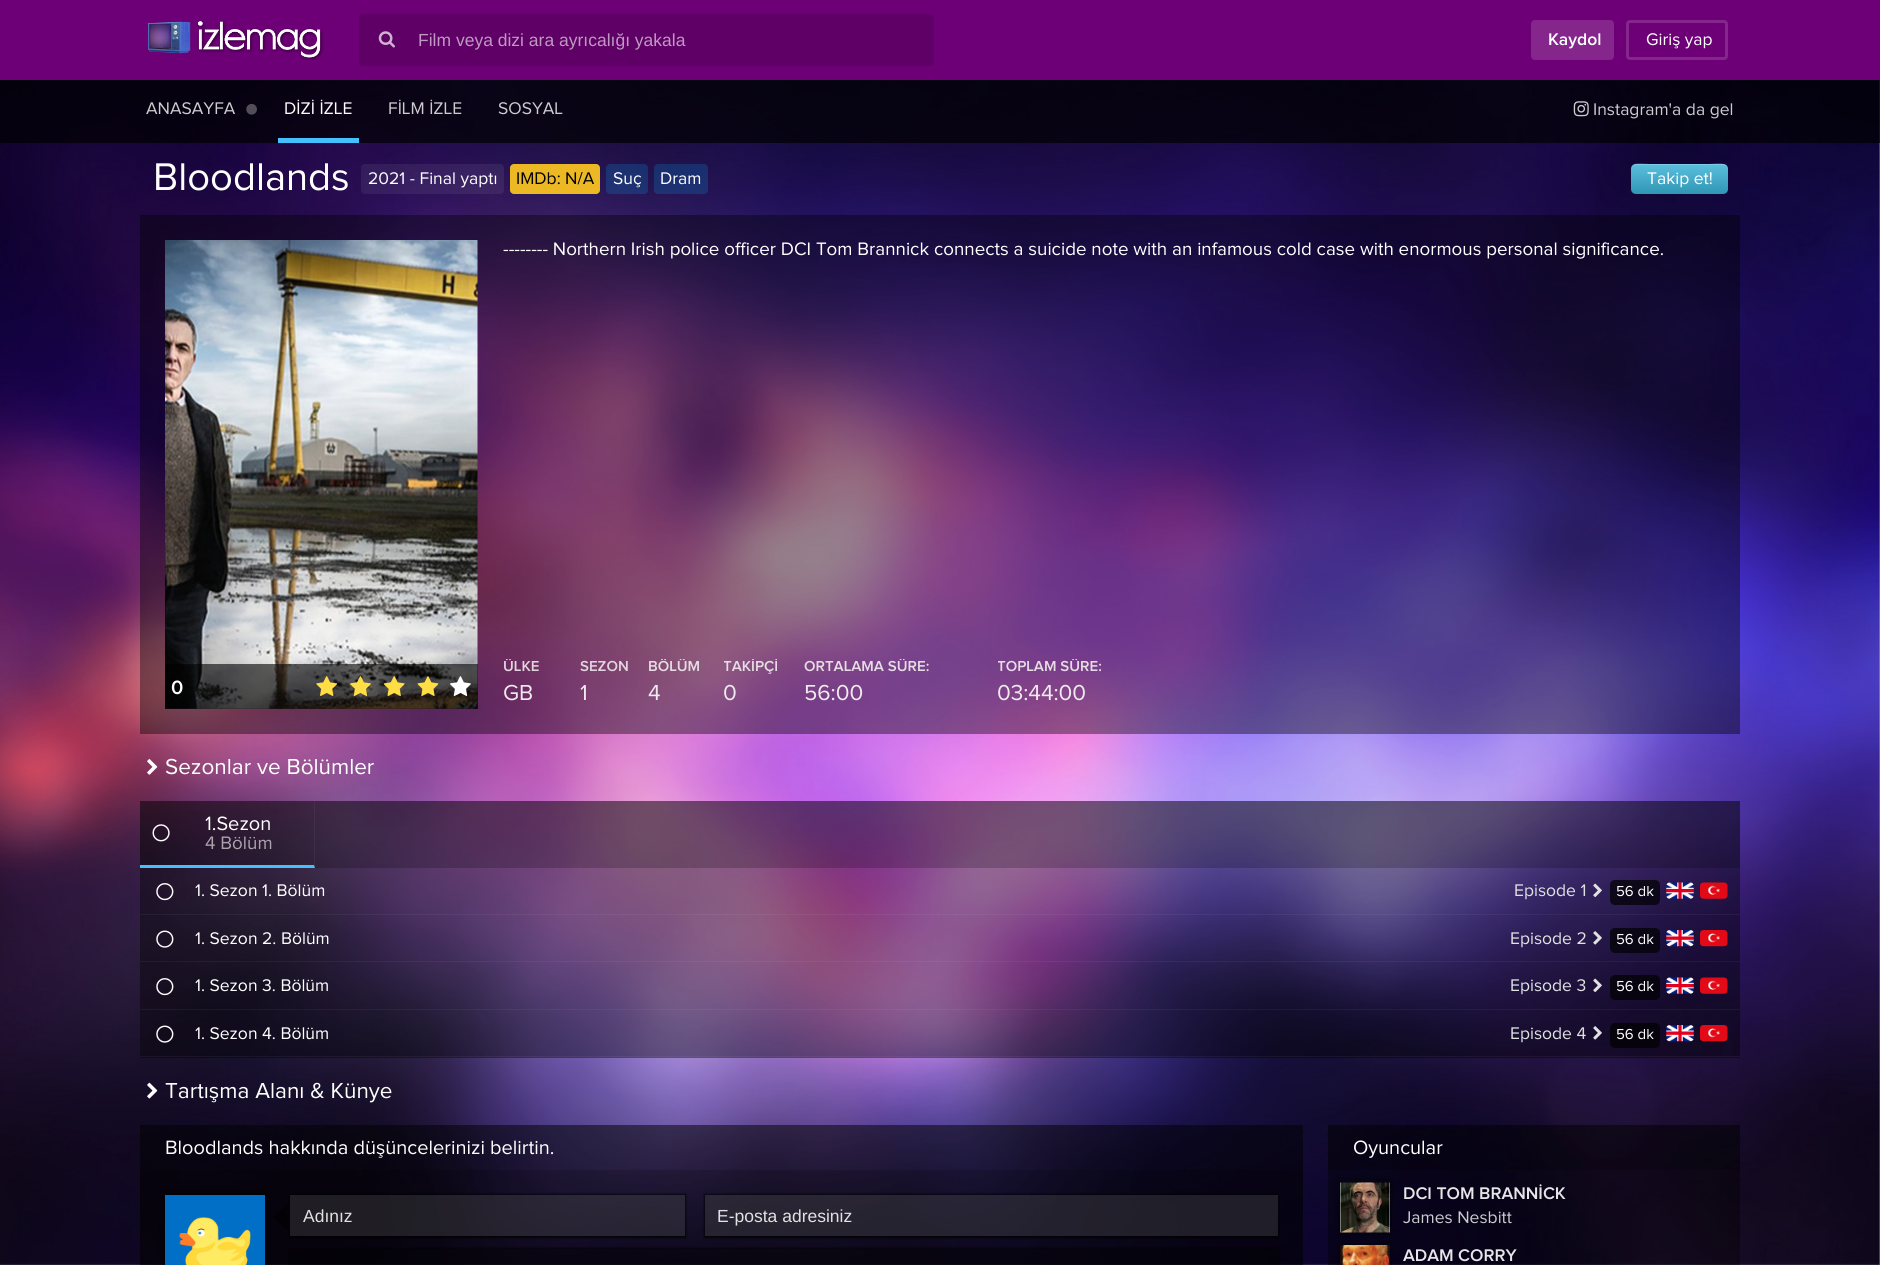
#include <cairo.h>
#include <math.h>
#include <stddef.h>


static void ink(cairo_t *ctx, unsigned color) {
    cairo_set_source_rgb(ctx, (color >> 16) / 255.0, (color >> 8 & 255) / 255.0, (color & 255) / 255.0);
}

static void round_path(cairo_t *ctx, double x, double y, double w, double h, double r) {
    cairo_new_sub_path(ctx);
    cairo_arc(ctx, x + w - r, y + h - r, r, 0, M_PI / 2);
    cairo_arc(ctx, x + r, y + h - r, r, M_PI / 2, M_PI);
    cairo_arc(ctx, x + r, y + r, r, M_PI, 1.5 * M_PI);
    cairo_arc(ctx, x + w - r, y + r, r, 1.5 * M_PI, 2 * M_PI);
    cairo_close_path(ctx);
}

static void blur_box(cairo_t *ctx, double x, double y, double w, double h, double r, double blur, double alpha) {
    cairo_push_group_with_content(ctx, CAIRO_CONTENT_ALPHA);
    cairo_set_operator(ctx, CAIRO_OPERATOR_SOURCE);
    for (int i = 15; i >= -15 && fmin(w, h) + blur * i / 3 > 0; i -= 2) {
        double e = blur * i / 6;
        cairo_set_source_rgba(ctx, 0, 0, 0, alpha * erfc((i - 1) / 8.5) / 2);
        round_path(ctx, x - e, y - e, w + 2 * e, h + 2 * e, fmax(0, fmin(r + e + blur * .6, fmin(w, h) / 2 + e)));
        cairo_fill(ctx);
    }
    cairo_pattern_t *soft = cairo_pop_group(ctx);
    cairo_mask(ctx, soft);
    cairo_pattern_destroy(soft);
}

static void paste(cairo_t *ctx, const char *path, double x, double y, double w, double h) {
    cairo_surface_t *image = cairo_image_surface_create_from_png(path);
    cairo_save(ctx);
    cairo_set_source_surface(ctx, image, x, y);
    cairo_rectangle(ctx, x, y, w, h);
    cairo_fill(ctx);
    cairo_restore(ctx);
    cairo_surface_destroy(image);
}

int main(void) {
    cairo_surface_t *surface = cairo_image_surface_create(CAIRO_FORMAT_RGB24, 1880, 1265);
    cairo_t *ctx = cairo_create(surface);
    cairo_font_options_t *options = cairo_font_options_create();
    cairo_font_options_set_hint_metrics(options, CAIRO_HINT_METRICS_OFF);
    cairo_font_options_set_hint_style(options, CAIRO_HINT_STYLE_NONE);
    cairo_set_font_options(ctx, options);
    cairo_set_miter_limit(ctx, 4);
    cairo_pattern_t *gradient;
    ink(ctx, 0xFFFFFF);
    cairo_paint(ctx);
    paste(ctx, "media/1.png", 0, 80, 1880, 1185);
    ink(ctx, 0x6E0077);
    cairo_rectangle(ctx, 0, 0, 1880, 80);
    cairo_fill(ctx);
    paste(ctx, "media/2.png", 148, 20, 176, 40);
    ink(ctx, 0x5E0065);
    round_path(ctx, 359, 14, 575, 52, 4);
    cairo_fill(ctx);
    paste(ctx, "media/3.png", 378, 31, 17, 17);
    cairo_select_font_face(ctx, "Liberation Sans", CAIRO_FONT_SLANT_NORMAL, CAIRO_FONT_WEIGHT_NORMAL);
    cairo_set_font_size(ctx, 17.5);
    ink(ctx, 0xBF99C1);
    cairo_move_to(ctx, 418, 46);
    cairo_show_text(ctx, "Film veya dizi ara ayrıcalığı yakala");
    ink(ctx, 0x84268B);
    round_path(ctx, 1531, 20, 83, 40, 4);
    cairo_fill(ctx);
    cairo_select_font_face(ctx, "Proxima Nova SemiBold", CAIRO_FONT_SLANT_NORMAL, CAIRO_FONT_WEIGHT_NORMAL);
    ink(ctx, 0xFFFFFF);
    cairo_move_to(ctx, 1548, 45);
    cairo_show_text(ctx, "Kaydol");
    round_path(ctx, 1627.5, 21.5, 99, 37, 2.5);
    ink(ctx, 0x84268B);
    cairo_set_line_width(ctx, 3);
    cairo_stroke(ctx);
    cairo_select_font_face(ctx, "Proxima Nova", CAIRO_FONT_SLANT_NORMAL, CAIRO_FONT_WEIGHT_NORMAL);
    ink(ctx, 0xFFFFFF);
    cairo_move_to(ctx, 1646, 45);
    cairo_show_text(ctx, "Giriş yap");
    cairo_set_source_rgba(ctx, 0, 0, 0, 0.7);
    cairo_rectangle(ctx, 0, 80, 1880, 63);
    cairo_fill(ctx);
    ink(ctx, 0xCDCCCF);
    cairo_move_to(ctx, 146, 114);
    cairo_show_text(ctx, "ANASAYFA");
    paste(ctx, "media/4.png", 246, 104, 11, 11);
    ink(ctx, 0x44C0FE);
    cairo_rectangle(ctx, 278, 138, 81, 5);
    cairo_fill(ctx);
    ink(ctx, 0xFFFFFF);
    cairo_move_to(ctx, 284, 114);
    cairo_show_text(ctx, "DİZİ İZLE");
    ink(ctx, 0xCDCCCF);
    cairo_move_to(ctx, 388, 114);
    cairo_show_text(ctx, "FİLM İZLE");
    cairo_move_to(ctx, 498, 114);
    cairo_show_text(ctx, "SOSYAL");
    paste(ctx, "media/5.png", 1573, 101, 16, 16);
    cairo_move_to(ctx, 1593, 115);
    cairo_show_text(ctx, "Instagram'a da gel");
    cairo_set_font_size(ctx, 40);
    ink(ctx, 0xFFFFFF);
    cairo_move_to(ctx, 153, 190);
    cairo_show_text(ctx, "Bloodlands");
    cairo_set_source_rgba(ctx, 1, 1, 1, 0.07);
    round_path(ctx, 361, 164, 143, 30, 4);
    cairo_fill(ctx);
    cairo_set_font_size(ctx, 17.5);
    ink(ctx, 0xFFFFFF);
    cairo_move_to(ctx, 368, 184);
    cairo_show_text(ctx, "2021 - Final yaptı");
    ink(ctx, 0xECB924);
    round_path(ctx, 510, 164, 90, 30, 4);
    cairo_fill(ctx);
    ink(ctx, 0x000000);
    cairo_move_to(ctx, 516, 184);
    cairo_show_text(ctx, "IMDb: N/A");
    cairo_set_source_rgba(ctx, 0.012, 0.663, 0.957, 0.2);
    round_path(ctx, 606, 164, 42, 30, 4);
    cairo_fill(ctx);
    ink(ctx, 0xFFFFFF);
    cairo_move_to(ctx, 613, 184);
    cairo_show_text(ctx, "Suç");
    cairo_set_source_rgba(ctx, 0.012, 0.663, 0.957, 0.2);
    round_path(ctx, 654, 164, 54, 30, 4);
    cairo_fill(ctx);
    ink(ctx, 0xFFFFFF);
    cairo_move_to(ctx, 660, 184);
    cairo_show_text(ctx, "Dram");
    cairo_set_source_rgba(ctx, 1, 1, 1, 0.07);
    round_path(ctx, 1631, 164, 97, 30, 4);
    cairo_fill(ctx);
    gradient = cairo_pattern_create_linear(1679, 164, 1679, 194);
    cairo_pattern_add_color_stop_rgba(gradient, 0, 0.357, 0.753, 0.871, 1);
    cairo_pattern_add_color_stop_rgba(gradient, 1, 0.184, 0.588, 0.706, 1);
    cairo_set_source(ctx, gradient);
    cairo_pattern_destroy(gradient);
    round_path(ctx, 1631, 164, 97, 30, 5);
    cairo_fill(ctx);
    cairo_set_source_rgba(ctx, 1, 1, 1, 0.2);
    cairo_new_path(ctx);
    cairo_move_to(ctx, 1636, 165);
    cairo_line_to(ctx, 1722, 165);
    cairo_curve_to(ctx, 1725, 165, 1728, 167, 1728, 170);
    cairo_curve_to(ctx, 1728, 160, 1714, 164, 1708, 164);
    cairo_line_to(ctx, 1650, 164);
    cairo_curve_to(ctx, 1645, 164, 1631, 160, 1631, 170);
    cairo_curve_to(ctx, 1631, 167, 1633, 165, 1636, 165);
    cairo_close_path(ctx);
    cairo_fill(ctx);
    ink(ctx, 0xFFFFFF);
    cairo_move_to(ctx, 1647, 184);
    cairo_show_text(ctx, "Takip et!");
    cairo_set_source_rgba(ctx, 0, 0, 0, 0.4);
    cairo_rectangle(ctx, 140, 215, 1600, 519);
    cairo_fill(ctx);
    paste(ctx, "media/6.png", 165, 240, 313, 469);
    cairo_set_source_rgba(ctx, 0, 0, 0, 0.6);
    cairo_rectangle(ctx, 165, 664, 313, 45);
    cairo_fill(ctx);
    cairo_select_font_face(ctx, "Proxima Nova SemiBold", CAIRO_FONT_SLANT_NORMAL, CAIRO_FONT_WEIGHT_NORMAL);
    cairo_set_font_size(ctx, 20);
    ink(ctx, 0xFFFFFF);
    cairo_move_to(ctx, 171, 694);
    cairo_show_text(ctx, "0");
    paste(ctx, "media/7.png", 316, 676, 22, 20);
    paste(ctx, "media/8.png", 350, 676, 21, 20);
    paste(ctx, "media/9.png", 383, 676, 22, 20);
    paste(ctx, "media/10.png", 417, 676, 22, 20);
    paste(ctx, "media/11.png", 450, 676, 21, 20);
    cairo_select_font_face(ctx, "Proxima Nova", CAIRO_FONT_SLANT_NORMAL, CAIRO_FONT_WEIGHT_NORMAL);
    cairo_set_font_size(ctx, 18.75);
    cairo_move_to(ctx, 503, 255);
    cairo_show_text(ctx, "-------- Northern Irish police officer DCI Tom Brannick connects a suicide note with an infamous cold case with enormous personal significance.");
    cairo_save(ctx);
    cairo_rectangle(ctx, 503, 659, 71, 17);
    cairo_clip(ctx);
    cairo_select_font_face(ctx, "Proxima Nova SemiBold", CAIRO_FONT_SLANT_NORMAL, CAIRO_FONT_WEIGHT_NORMAL);
    cairo_set_font_size(ctx, 15);
    ink(ctx, 0xE2D5DF);
    cairo_move_to(ctx, 503, 671);
    cairo_show_text(ctx, "ÜLKE");
    cairo_restore(ctx);
    cairo_set_font_size(ctx, 22.5);
    ink(ctx, 0xF0EAEF);
    cairo_move_to(ctx, 503, 700);
    cairo_show_text(ctx, "GB");
    cairo_select_font_face(ctx, "Proxima Nova SemiBold", CAIRO_FONT_SLANT_NORMAL, CAIRO_FONT_WEIGHT_NORMAL);
    cairo_set_font_size(ctx, 15);
    ink(ctx, 0xE2D5DF);
    cairo_move_to(ctx, 580, 671);
    cairo_show_text(ctx, "SEZON");
    cairo_select_font_face(ctx, "Proxima Nova", CAIRO_FONT_SLANT_NORMAL, CAIRO_FONT_WEIGHT_NORMAL);
    cairo_set_font_size(ctx, 22.5);
    ink(ctx, 0xF0EAEF);
    cairo_move_to(ctx, 580, 700);
    cairo_show_text(ctx, "1");
    cairo_save(ctx);
    cairo_rectangle(ctx, 648, 659, 70, 17);
    cairo_clip(ctx);
    cairo_select_font_face(ctx, "Proxima Nova SemiBold", CAIRO_FONT_SLANT_NORMAL, CAIRO_FONT_WEIGHT_NORMAL);
    cairo_set_font_size(ctx, 15);
    ink(ctx, 0xE7DCE4);
    cairo_move_to(ctx, 648, 671);
    cairo_show_text(ctx, "BÖLÜM");
    cairo_restore(ctx);
    cairo_move_to(ctx, 648, 700);
    cairo_show_text(ctx, "4");
    cairo_save(ctx);
    cairo_rectangle(ctx, 724, 659, 74, 17);
    cairo_clip(ctx);
    cairo_select_font_face(ctx, "Proxima Nova SemiBold", CAIRO_FONT_SLANT_NORMAL, CAIRO_FONT_WEIGHT_NORMAL);
    cairo_set_font_size(ctx, 15);
    ink(ctx, 0xE7DCE4);
    cairo_move_to(ctx, 723, 671);
    cairo_show_text(ctx, "TAKİPÇİ");
    cairo_restore(ctx);
    cairo_move_to(ctx, 723, 700);
    cairo_show_text(ctx, "0");
    cairo_save(ctx);
    cairo_rectangle(ctx, 804, 659, 187, 17);
    cairo_clip(ctx);
    cairo_select_font_face(ctx, "Proxima Nova SemiBold", CAIRO_FONT_SLANT_NORMAL, CAIRO_FONT_WEIGHT_NORMAL);
    cairo_set_font_size(ctx, 15);
    ink(ctx, 0xE7DCE4);
    cairo_move_to(ctx, 804, 671);
    cairo_show_text(ctx, "ORTALAMA SÜRE:");
    cairo_restore(ctx);
    cairo_move_to(ctx, 804, 700);
    cairo_show_text(ctx, "56:00");
    cairo_save(ctx);
    cairo_rectangle(ctx, 998, 659, 198, 17);
    cairo_clip(ctx);
    cairo_select_font_face(ctx, "Proxima Nova SemiBold", CAIRO_FONT_SLANT_NORMAL, CAIRO_FONT_WEIGHT_NORMAL);
    cairo_set_font_size(ctx, 15);
    ink(ctx, 0xE7DCE4);
    cairo_move_to(ctx, 997, 671);
    cairo_show_text(ctx, "TOPLAM SÜRE:");
    cairo_restore(ctx);
    cairo_move_to(ctx, 997, 700);
    cairo_show_text(ctx, "03:44:00");
    paste(ctx, "media/12.png", 147, 759, 11, 16);
    ink(ctx, 0xFFFFFF);
    cairo_move_to(ctx, 165, 774);
    cairo_show_text(ctx, "Sezonlar ve Bölümler");
    cairo_set_source_rgba(ctx, 0, 0, 0, 0.4);
    cairo_rectangle(ctx, 140, 801, 1600, 257);
    cairo_fill(ctx);
    cairo_set_source_rgba(ctx, 0, 0, 0, 0.2);
    cairo_rectangle(ctx, 140, 801, 1600, 67);
    cairo_fill(ctx);
    cairo_set_source_rgba(ctx, 1, 1, 1, 0.05);
    cairo_new_path(ctx);
    cairo_move_to(ctx, 315, 801);
    cairo_line_to(ctx, 315, 868);
    cairo_line_to(ctx, 314, 865);
    cairo_line_to(ctx, 314, 801);
    cairo_close_path(ctx);
    cairo_fill(ctx);
    ink(ctx, 0x44C0FE);
    cairo_new_path(ctx);
    cairo_move_to(ctx, 315, 868);
    cairo_line_to(ctx, 140, 868);
    cairo_line_to(ctx, 140, 865);
    cairo_line_to(ctx, 314, 865);
    cairo_close_path(ctx);
    cairo_fill(ctx);
    paste(ctx, "media/13.png", 152, 824, 18, 18);
    cairo_set_font_size(ctx, 20);
    ink(ctx, 0xFFFFFF);
    cairo_move_to(ctx, 205, 830);
    cairo_show_text(ctx, "1.Sezon");
    cairo_set_font_size(ctx, 18.75);
    ink(ctx, 0xAAA3AD);
    cairo_move_to(ctx, 205, 849);
    cairo_show_text(ctx, "4 Bölüm");
    cairo_set_source_rgba(ctx, 1, 1, 1, 0.05);
    cairo_rectangle(ctx, 140, 914, 1600, 1);
    cairo_fill(ctx);
    paste(ctx, "media/14.png", 156, 883, 18, 18);
    cairo_set_font_size(ctx, 17.5);
    ink(ctx, 0xFFFFFF);
    cairo_move_to(ctx, 195, 896);
    cairo_show_text(ctx, "1. Sezon 1. Bölüm");
    ink(ctx, 0xE1E1E2);
    cairo_move_to(ctx, 1514, 896);
    cairo_show_text(ctx, "Episode 1");
    paste(ctx, "media/15.png", 1593, 883, 9, 15);
    cairo_set_source_rgba(ctx, 0, 0, 0, 0.7);
    round_path(ctx, 1610, 880, 50, 25, 5);
    cairo_fill(ctx);
    cairo_set_font_size(ctx, 15);
    ink(ctx, 0xFFFFFF);
    cairo_move_to(ctx, 1616, 896);
    cairo_show_text(ctx, "56 dk");
    paste(ctx, "media/16.png", 1666, 882, 28, 17);
    paste(ctx, "media/17.png", 1699, 882, 29, 17);
    cairo_set_source_rgba(ctx, 1, 1, 1, 0.05);
    cairo_rectangle(ctx, 140, 961, 1600, 1);
    cairo_fill(ctx);
    paste(ctx, "media/18.png", 156, 930, 18, 18);
    cairo_set_font_size(ctx, 17.5);
    ink(ctx, 0xFFFFFF);
    cairo_move_to(ctx, 195, 944);
    cairo_show_text(ctx, "1. Sezon 2. Bölüm");
    ink(ctx, 0xE1E1E2);
    cairo_move_to(ctx, 1510, 944);
    cairo_show_text(ctx, "Episode 2");
    paste(ctx, "media/19.png", 1593, 931, 9, 14);
    cairo_set_source_rgba(ctx, 0, 0, 0, 0.7);
    round_path(ctx, 1610, 928, 50, 25, 5);
    cairo_fill(ctx);
    cairo_set_font_size(ctx, 15);
    ink(ctx, 0xFFFFFF);
    cairo_move_to(ctx, 1616, 944);
    cairo_show_text(ctx, "56 dk");
    paste(ctx, "media/20.png", 1666, 930, 28, 17);
    paste(ctx, "media/21.png", 1700, 930, 28, 17);
    cairo_set_source_rgba(ctx, 1, 1, 1, 0.05);
    cairo_rectangle(ctx, 140, 1009, 1600, 1);
    cairo_fill(ctx);
    paste(ctx, "media/22.png", 156, 978, 18, 18);
    cairo_set_font_size(ctx, 17.5);
    ink(ctx, 0xFFFFFF);
    cairo_move_to(ctx, 195, 991);
    cairo_show_text(ctx, "1. Sezon 3. Bölüm");
    ink(ctx, 0xE1E1E2);
    cairo_move_to(ctx, 1510, 991);
    cairo_show_text(ctx, "Episode 3");
    paste(ctx, "media/23.png", 1593, 978, 9, 15);
    cairo_set_source_rgba(ctx, 0, 0, 0, 0.7);
    round_path(ctx, 1610, 975, 50, 25, 5);
    cairo_fill(ctx);
    cairo_set_font_size(ctx, 15);
    ink(ctx, 0xFFFFFF);
    cairo_move_to(ctx, 1616, 991);
    cairo_show_text(ctx, "56 dk");
    paste(ctx, "media/24.png", 1666, 977, 28, 17);
    paste(ctx, "media/25.png", 1699, 977, 29, 17);
    cairo_set_source_rgba(ctx, 1, 1, 1, 0.05);
    cairo_rectangle(ctx, 140, 1056, 1600, 1);
    cairo_fill(ctx);
    paste(ctx, "media/26.png", 156, 1025, 18, 18);
    cairo_set_font_size(ctx, 17.5);
    ink(ctx, 0xFFFFFF);
    cairo_move_to(ctx, 195, 1039);
    cairo_show_text(ctx, "1. Sezon 4. Bölüm");
    ink(ctx, 0xE1E1E2);
    cairo_move_to(ctx, 1510, 1039);
    cairo_show_text(ctx, "Episode 4");
    paste(ctx, "media/27.png", 1593, 1026, 9, 14);
    cairo_set_source_rgba(ctx, 0, 0, 0, 0.7);
    round_path(ctx, 1610, 1023, 50, 25, 5);
    cairo_fill(ctx);
    cairo_set_font_size(ctx, 15);
    ink(ctx, 0xFFFFFF);
    cairo_move_to(ctx, 1616, 1039);
    cairo_show_text(ctx, "56 dk");
    paste(ctx, "media/28.png", 1666, 1025, 28, 17);
    paste(ctx, "media/29.png", 1700, 1025, 28, 17);
    paste(ctx, "media/30.png", 147, 1082, 11, 17);
    cairo_set_font_size(ctx, 22.5);
    cairo_move_to(ctx, 165, 1098);
    cairo_show_text(ctx, "Tartışma Alanı & Künye");
    cairo_set_source_rgba(ctx, 0, 0, 0, 0.4);
    cairo_rectangle(ctx, 140, 1125, 1163, 140);
    cairo_fill(ctx);
    cairo_set_source_rgba(ctx, 0, 0, 0, 0.2);
    cairo_rectangle(ctx, 140, 1125, 1163, 45);
    cairo_fill(ctx);
    cairo_set_font_size(ctx, 20);
    ink(ctx, 0xFFFFFF);
    cairo_move_to(ctx, 165, 1154);
    cairo_show_text(ctx, "Bloodlands hakkında düşüncelerinizi belirtin.");
    cairo_set_source_rgba(ctx, 0, 0, 0, 0.33);
    cairo_rectangle(ctx, 140, 1170, 1163, 95);
    cairo_fill(ctx);
    ink(ctx, 0x000000);
    blur_box(ctx, 163, 1193, 105, 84, 0, 4, 0.75);
    paste(ctx, "media/31.png", 165, 1195, 100, 70);
    cairo_save(ctx);
    cairo_set_fill_rule(ctx, CAIRO_FILL_RULE_EVEN_ODD);
    cairo_new_path(ctx);
    cairo_move_to(ctx, 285, 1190);
    cairo_line_to(ctx, 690, 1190);
    cairo_line_to(ctx, 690, 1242);
    cairo_line_to(ctx, 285, 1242);
    cairo_close_path(ctx);
    cairo_move_to(ctx, 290, 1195);
    cairo_line_to(ctx, 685, 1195);
    cairo_line_to(ctx, 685, 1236);
    cairo_line_to(ctx, 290, 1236);
    cairo_close_path(ctx);
    cairo_clip(ctx);
    blur_box(ctx, 289, 1194, 397, 44, 0, 1, 0.75);
    cairo_restore(ctx);
    ink(ctx, 0x030106);
    cairo_new_path(ctx);
    cairo_move_to(ctx, 287.5, 1205);
    cairo_line_to(ctx, 287.5, 1230);
    cairo_line_to(ctx, 272.5, 1217.5);
    cairo_close_path(ctx);
    cairo_fill(ctx);
    cairo_set_source_rgba(ctx, 0.275, 0.275, 0.275, 0.4);
    cairo_rectangle(ctx, 290, 1195, 395, 41);
    cairo_fill(ctx);
    cairo_select_font_face(ctx, "Liberation Sans", CAIRO_FONT_SLANT_NORMAL, CAIRO_FONT_WEIGHT_NORMAL);
    cairo_set_font_size(ctx, 17.5);
    ink(ctx, 0xE1E1E2);
    cairo_move_to(ctx, 303, 1222);
    cairo_show_text(ctx, "Adınız");
    cairo_save(ctx);
    cairo_set_fill_rule(ctx, CAIRO_FILL_RULE_EVEN_ODD);
    cairo_new_path(ctx);
    cairo_move_to(ctx, 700, 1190);
    cairo_line_to(ctx, 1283, 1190);
    cairo_line_to(ctx, 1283, 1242);
    cairo_line_to(ctx, 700, 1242);
    cairo_close_path(ctx);
    cairo_move_to(ctx, 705, 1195);
    cairo_line_to(ctx, 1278, 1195);
    cairo_line_to(ctx, 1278, 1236);
    cairo_line_to(ctx, 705, 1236);
    cairo_close_path(ctx);
    cairo_clip(ctx);
    ink(ctx, 0x000000);
    blur_box(ctx, 704, 1194, 575, 44, 0, 1, 0.75);
    cairo_restore(ctx);
    cairo_set_source_rgba(ctx, 0.275, 0.275, 0.275, 0.4);
    cairo_rectangle(ctx, 705, 1195, 573, 41);
    cairo_fill(ctx);
    ink(ctx, 0xE1E1E2);
    cairo_move_to(ctx, 717, 1222);
    cairo_show_text(ctx, "E-posta adresiniz");
    cairo_save(ctx);
    cairo_set_fill_rule(ctx, CAIRO_FILL_RULE_EVEN_ODD);
    cairo_new_path(ctx);
    cairo_move_to(ctx, 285, 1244);
    cairo_line_to(ctx, 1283, 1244);
    cairo_line_to(ctx, 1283, 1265);
    cairo_line_to(ctx, 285, 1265);
    cairo_close_path(ctx);
    cairo_move_to(ctx, 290, 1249);
    cairo_line_to(ctx, 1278, 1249);
    cairo_line_to(ctx, 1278, 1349);
    cairo_line_to(ctx, 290, 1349);
    cairo_close_path(ctx);
    cairo_clip(ctx);
    ink(ctx, 0x000000);
    blur_box(ctx, 289, 1248, 990, 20, 0, 1, 0.75);
    cairo_restore(ctx);
    cairo_set_source_rgba(ctx, 0, 0, 0, 0.4);
    cairo_rectangle(ctx, 290, 1249, 988, 16);
    cairo_fill(ctx);
    cairo_rectangle(ctx, 1328, 1125, 412, 140);
    cairo_fill(ctx);
    cairo_set_source_rgba(ctx, 0, 0, 0, 0.2);
    cairo_rectangle(ctx, 1328, 1125, 412, 45);
    cairo_fill(ctx);
    cairo_select_font_face(ctx, "Proxima Nova", CAIRO_FONT_SLANT_NORMAL, CAIRO_FONT_WEIGHT_NORMAL);
    cairo_set_font_size(ctx, 20);
    ink(ctx, 0xFFFFFF);
    cairo_move_to(ctx, 1353, 1154);
    cairo_show_text(ctx, "Oyuncular");
    ink(ctx, 0x000000);
    blur_box(ctx, 1339, 1181, 52, 53, 0, 4, 0.5);
    paste(ctx, "media/32.png", 1340, 1182, 50, 51);
    cairo_select_font_face(ctx, "Proxima Nova SemiBold", CAIRO_FONT_SLANT_NORMAL, CAIRO_FONT_WEIGHT_NORMAL);
    cairo_set_font_size(ctx, 17.5);
    ink(ctx, 0xE6E6E8);
    cairo_move_to(ctx, 1403, 1199);
    cairo_show_text(ctx, "DCI TOM BRANNİCK");
    cairo_select_font_face(ctx, "Proxima Nova", CAIRO_FONT_SLANT_NORMAL, CAIRO_FONT_WEIGHT_NORMAL);
    ink(ctx, 0xCDCCCF);
    cairo_move_to(ctx, 1403, 1223);
    cairo_show_text(ctx, "James Nesbitt");
    ink(ctx, 0x000000);
    blur_box(ctx, 1339, 1244, 52, 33, 0, 4, 0.5);
    paste(ctx, "media/33.png", 1340, 1245, 50, 20);
    cairo_select_font_face(ctx, "Proxima Nova SemiBold", CAIRO_FONT_SLANT_NORMAL, CAIRO_FONT_WEIGHT_NORMAL);
    ink(ctx, 0xE6E6E8);
    cairo_move_to(ctx, 1403, 1261);
    cairo_show_text(ctx, "ADAM CORRY");
    cairo_surface_write_to_png(surface, "image.png");
    cairo_font_options_destroy(options);
    cairo_destroy(ctx);
    cairo_surface_destroy(surface);
    return 0;
}
